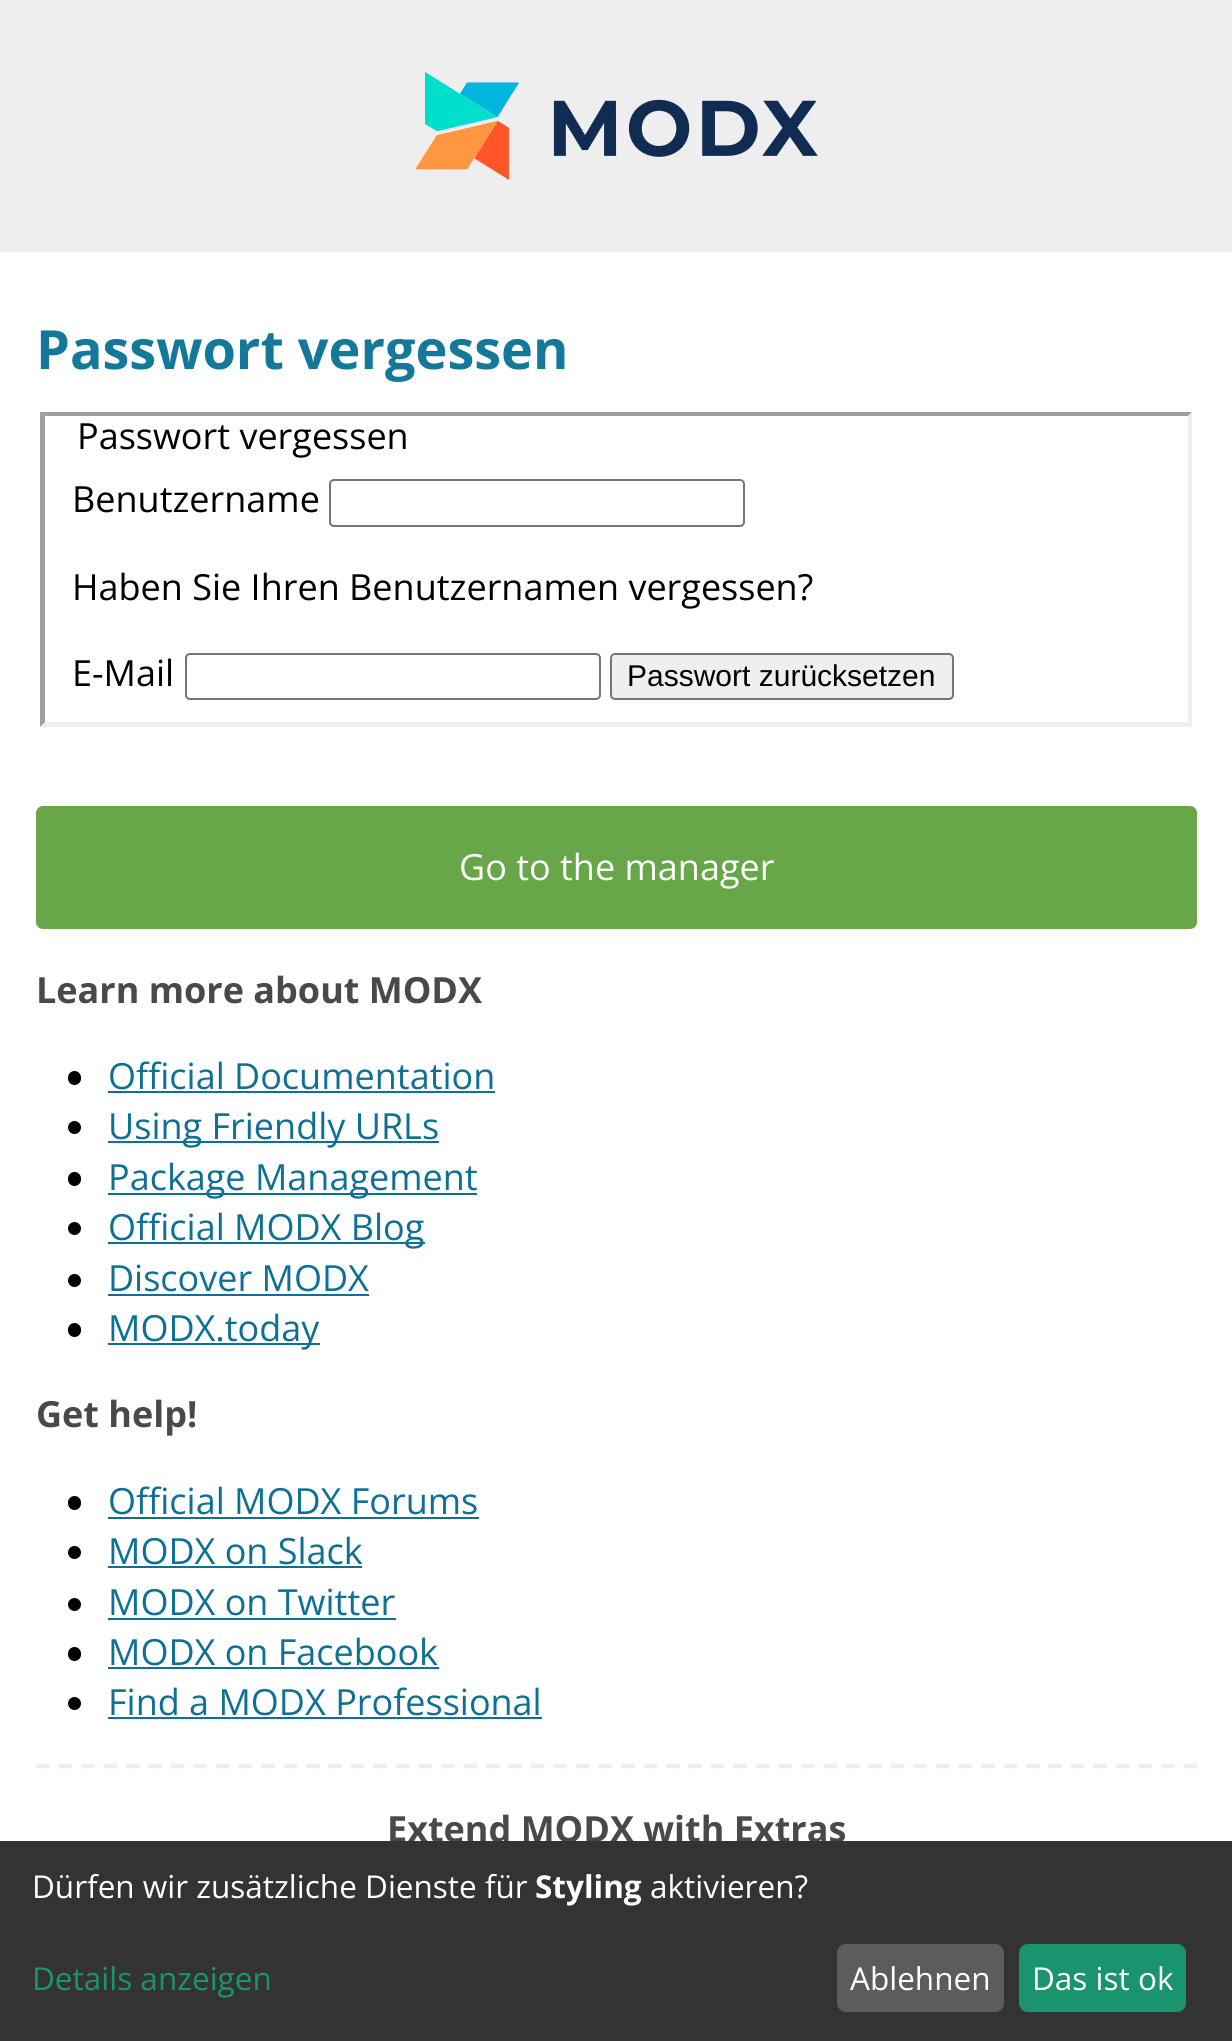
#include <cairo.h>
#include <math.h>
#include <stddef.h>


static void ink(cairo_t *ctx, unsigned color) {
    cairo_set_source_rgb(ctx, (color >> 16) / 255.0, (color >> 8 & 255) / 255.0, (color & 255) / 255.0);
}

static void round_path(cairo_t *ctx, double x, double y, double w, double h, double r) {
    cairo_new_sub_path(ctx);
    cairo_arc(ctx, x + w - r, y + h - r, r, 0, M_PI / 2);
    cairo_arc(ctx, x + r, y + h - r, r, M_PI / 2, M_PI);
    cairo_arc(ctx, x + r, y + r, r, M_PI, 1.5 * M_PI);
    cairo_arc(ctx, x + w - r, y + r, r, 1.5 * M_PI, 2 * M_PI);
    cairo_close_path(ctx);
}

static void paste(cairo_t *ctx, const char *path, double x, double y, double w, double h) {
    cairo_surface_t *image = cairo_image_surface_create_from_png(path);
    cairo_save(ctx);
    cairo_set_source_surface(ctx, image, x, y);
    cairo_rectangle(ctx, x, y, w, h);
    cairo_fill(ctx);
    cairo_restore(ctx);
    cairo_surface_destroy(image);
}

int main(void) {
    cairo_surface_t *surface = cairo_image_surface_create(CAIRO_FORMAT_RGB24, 1232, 2041);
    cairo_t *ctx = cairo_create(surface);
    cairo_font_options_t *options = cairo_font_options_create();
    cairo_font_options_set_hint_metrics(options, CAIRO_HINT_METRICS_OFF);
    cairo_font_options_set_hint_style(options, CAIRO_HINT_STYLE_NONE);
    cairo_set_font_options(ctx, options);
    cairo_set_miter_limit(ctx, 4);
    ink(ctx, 0xEEEEEE);
    cairo_paint(ctx);
    paste(ctx, "media/1.png", 415, 72, 403, 108);
    ink(ctx, 0xFFFFFF);
    cairo_rectangle(ctx, 0, 252, 1232, 1589);
    cairo_fill(ctx);
    cairo_select_font_face(ctx, "Open Sans", CAIRO_FONT_SLANT_NORMAL, CAIRO_FONT_WEIGHT_BOLD);
    cairo_set_font_size(ctx, 54);
    ink(ctx, 0x137899);
    cairo_move_to(ctx, 36, 369);
    cairo_show_text(ctx, "Passwort vergessen");
    ink(ctx, 0x9F9F9F);
    cairo_new_path(ctx);
    cairo_move_to(ctx, 40, 412);
    cairo_line_to(ctx, 1192, 412);
    cairo_line_to(ctx, 1188, 416);
    cairo_line_to(ctx, 45, 416);
    cairo_close_path(ctx);
    cairo_fill(ctx);
    ink(ctx, 0xEFEFEF);
    cairo_new_path(ctx);
    cairo_move_to(ctx, 1192, 412);
    cairo_line_to(ctx, 1192, 727);
    cairo_line_to(ctx, 1188, 722);
    cairo_line_to(ctx, 1188, 416);
    cairo_close_path(ctx);
    cairo_fill(ctx);
    cairo_new_path(ctx);
    cairo_move_to(ctx, 1192, 727);
    cairo_line_to(ctx, 40, 727);
    cairo_line_to(ctx, 45, 722);
    cairo_line_to(ctx, 1188, 722);
    cairo_close_path(ctx);
    cairo_fill(ctx);
    ink(ctx, 0x9F9F9F);
    cairo_new_path(ctx);
    cairo_move_to(ctx, 40, 727);
    cairo_line_to(ctx, 40, 412);
    cairo_line_to(ctx, 45, 416);
    cairo_line_to(ctx, 45, 722);
    cairo_close_path(ctx);
    cairo_fill(ctx);
    cairo_select_font_face(ctx, "Open Sans", CAIRO_FONT_SLANT_NORMAL, CAIRO_FONT_WEIGHT_NORMAL);
    cairo_set_font_size(ctx, 36);
    ink(ctx, 0x000000);
    cairo_move_to(ctx, 77, 449);
    cairo_show_text(ctx, "Passwort vergessen");
    cairo_move_to(ctx, 72, 512);
    cairo_show_text(ctx, "Benutzername");
    round_path(ctx, 330, 480, 414, 46, 4);
    ink(ctx, 0x767676);
    cairo_stroke(ctx);
    ink(ctx, 0x000000);
    cairo_move_to(ctx, 72, 600);
    cairo_show_text(ctx, "Haben Sie Ihren Benutzernamen vergessen?");
    cairo_move_to(ctx, 72, 686);
    cairo_show_text(ctx, "E-Mail");
    round_path(ctx, 186, 654, 414, 45, 4);
    ink(ctx, 0x767676);
    cairo_stroke(ctx);
    ink(ctx, 0xEFEFEF);
    round_path(ctx, 611, 654, 342, 45, 4);
    cairo_fill_preserve(ctx);
    ink(ctx, 0x767676);
    cairo_stroke(ctx);
    cairo_select_font_face(ctx, "Liberation Sans", CAIRO_FONT_SLANT_NORMAL, CAIRO_FONT_WEIGHT_NORMAL);
    cairo_set_font_size(ctx, 30);
    ink(ctx, 0x000000);
    cairo_move_to(ctx, 627, 686);
    cairo_show_text(ctx, "Passwort zurücksetzen");
    ink(ctx, 0x67A749);
    round_path(ctx, 36, 806, 1161, 123, 7);
    cairo_fill(ctx);
    cairo_select_font_face(ctx, "Open Sans", CAIRO_FONT_SLANT_NORMAL, CAIRO_FONT_WEIGHT_NORMAL);
    cairo_set_font_size(ctx, 36);
    ink(ctx, 0xFFFFFF);
    cairo_move_to(ctx, 459, 880);
    cairo_show_text(ctx, "Go to the manager");
    cairo_select_font_face(ctx, "Open Sans", CAIRO_FONT_SLANT_NORMAL, CAIRO_FONT_WEIGHT_BOLD);
    ink(ctx, 0x494949);
    cairo_move_to(ctx, 36, 1003);
    cairo_show_text(ctx, "Learn more about MODX");
    ink(ctx, 0x000000);
    round_path(ctx, 68, 1071, 13, 14, 6.5);
    cairo_fill(ctx);
    cairo_select_font_face(ctx, "Open Sans", CAIRO_FONT_SLANT_NORMAL, CAIRO_FONT_WEIGHT_NORMAL);
    ink(ctx, 0x0F7096);
    cairo_move_to(ctx, 108, 1089);
    cairo_show_text(ctx, "Official Documentation");
    cairo_rectangle(ctx, 108, 1091, 387, 2);
    cairo_fill(ctx);
    ink(ctx, 0x000000);
    cairo_arc(ctx, 74.5, 1127.5, 6.5, 0, 2 * M_PI);
    cairo_fill(ctx);
    ink(ctx, 0x0F7096);
    cairo_rectangle(ctx, 108, 1141, 331, 2);
    cairo_fill(ctx);
    cairo_move_to(ctx, 108, 1139);
    cairo_show_text(ctx, "Using Friendly URLs");
    ink(ctx, 0x000000);
    round_path(ctx, 68, 1172, 13, 14, 6.5);
    cairo_fill(ctx);
    ink(ctx, 0x0F7096);
    cairo_rectangle(ctx, 108, 1193, 369, 2);
    cairo_fill(ctx);
    cairo_move_to(ctx, 108, 1190);
    cairo_show_text(ctx, "Package Management");
    ink(ctx, 0x000000);
    cairo_new_path(ctx);
    cairo_arc(ctx, 74.5, 1228.5, 6.5, 0, 2 * M_PI);
    cairo_fill(ctx);
    ink(ctx, 0x0F7096);
    cairo_rectangle(ctx, 108, 1242, 317, 2);
    cairo_fill(ctx);
    cairo_move_to(ctx, 108, 1240);
    cairo_show_text(ctx, "Official MODX Blog");
    ink(ctx, 0x000000);
    cairo_new_path(ctx);
    cairo_arc(ctx, 74.5, 1280.5, 6.5, 0, 2 * M_PI);
    cairo_fill(ctx);
    ink(ctx, 0x0F7096);
    cairo_move_to(ctx, 108, 1291);
    cairo_show_text(ctx, "Discover MODX");
    cairo_rectangle(ctx, 108, 1294, 261, 2);
    cairo_fill(ctx);
    ink(ctx, 0x000000);
    round_path(ctx, 68, 1323, 13, 14, 6.5);
    cairo_fill(ctx);
    ink(ctx, 0x0F7096);
    cairo_rectangle(ctx, 108, 1343, 212, 2);
    cairo_fill(ctx);
    cairo_move_to(ctx, 108, 1341);
    cairo_show_text(ctx, "MODX.today");
    cairo_select_font_face(ctx, "Open Sans", CAIRO_FONT_SLANT_NORMAL, CAIRO_FONT_WEIGHT_BOLD);
    ink(ctx, 0x494949);
    cairo_move_to(ctx, 36, 1427);
    cairo_show_text(ctx, "Get help!");
    ink(ctx, 0x000000);
    round_path(ctx, 68, 1496, 13, 14, 6.5);
    cairo_fill(ctx);
    cairo_select_font_face(ctx, "Open Sans", CAIRO_FONT_SLANT_NORMAL, CAIRO_FONT_WEIGHT_NORMAL);
    ink(ctx, 0x0F7096);
    cairo_move_to(ctx, 108, 1514);
    cairo_show_text(ctx, "Official MODX Forums");
    cairo_rectangle(ctx, 108, 1517, 371, 2);
    cairo_fill(ctx);
    ink(ctx, 0x000000);
    cairo_arc(ctx, 74.5, 1552.5, 6.5, 0, 2 * M_PI);
    cairo_fill(ctx);
    ink(ctx, 0x0F7096);
    cairo_move_to(ctx, 108, 1564);
    cairo_show_text(ctx, "MODX on Slack");
    cairo_rectangle(ctx, 108, 1566, 254, 2);
    cairo_fill(ctx);
    ink(ctx, 0x000000);
    cairo_arc(ctx, 74.5, 1604.5, 6.5, 0, 2 * M_PI);
    cairo_fill(ctx);
    ink(ctx, 0x0F7096);
    cairo_move_to(ctx, 108, 1615);
    cairo_show_text(ctx, "MODX on Twitter");
    cairo_rectangle(ctx, 108, 1618, 288, 2);
    cairo_fill(ctx);
    ink(ctx, 0x000000);
    round_path(ctx, 68, 1647, 13, 14, 6.5);
    cairo_fill(ctx);
    ink(ctx, 0x0F7096);
    cairo_move_to(ctx, 108, 1665);
    cairo_show_text(ctx, "MODX on Facebook");
    cairo_rectangle(ctx, 108, 1667, 331, 2);
    cairo_fill(ctx);
    ink(ctx, 0x000000);
    cairo_arc(ctx, 74.5, 1703.5, 6.5, 0, 2 * M_PI);
    cairo_fill(ctx);
    ink(ctx, 0x0F7096);
    cairo_move_to(ctx, 108, 1715);
    cairo_show_text(ctx, "Find a MODX Professional");
    cairo_rectangle(ctx, 108, 1717, 434, 2);
    cairo_fill(ctx);
    cairo_new_path(ctx);
    cairo_move_to(ctx, 36, 1766);
    cairo_line_to(ctx, 1197, 1766);
    ink(ctx, 0xEEEEEE);
    cairo_set_line_width(ctx, 4.5);
    cairo_set_dash(ctx, (double[]){13.5, 9}, 2, 0);
    cairo_stroke(ctx);
    cairo_select_font_face(ctx, "Open Sans", CAIRO_FONT_SLANT_NORMAL, CAIRO_FONT_WEIGHT_BOLD);
    ink(ctx, 0x494949);
    cairo_move_to(ctx, 387, 1842);
    cairo_show_text(ctx, "Extend MODX with Extras");
    ink(ctx, 0x333333);
    cairo_rectangle(ctx, 0, 1841, 1232, 200);
    cairo_fill(ctx);
    cairo_select_font_face(ctx, "Open Sans", CAIRO_FONT_SLANT_NORMAL, CAIRO_FONT_WEIGHT_NORMAL);
    cairo_set_font_size(ctx, 31.5);
    ink(ctx, 0xFFFFFF);
    cairo_move_to(ctx, 32, 1898);
    cairo_show_text(ctx, "Dürfen wir zusätzliche Dienste für");
    cairo_select_font_face(ctx, "Open Sans", CAIRO_FONT_SLANT_NORMAL, CAIRO_FONT_WEIGHT_BOLD);
    cairo_move_to(ctx, 535, 1898);
    cairo_show_text(ctx, "Styling");
    cairo_select_font_face(ctx, "Open Sans", CAIRO_FONT_SLANT_NORMAL, CAIRO_FONT_WEIGHT_NORMAL);
    cairo_move_to(ctx, 650, 1898);
    cairo_show_text(ctx, "aktivieren?");
    ink(ctx, 0x1A936F);
    cairo_move_to(ctx, 32, 1990);
    cairo_show_text(ctx, "Details anzeigen");
    ink(ctx, 0x5C5C5C);
    round_path(ctx, 837, 1944, 167, 68, 9);
    cairo_fill(ctx);
    ink(ctx, 0xFFFFFF);
    cairo_move_to(ctx, 850, 1990);
    cairo_show_text(ctx, "Ablehnen");
    ink(ctx, 0x1A936F);
    round_path(ctx, 1019, 1944, 167, 68, 9);
    cairo_fill(ctx);
    ink(ctx, 0xFFFFFF);
    cairo_move_to(ctx, 1032, 1990);
    cairo_show_text(ctx, "Das ist ok");
    cairo_surface_write_to_png(surface, "image.png");
    cairo_font_options_destroy(options);
    cairo_destroy(ctx);
    cairo_surface_destroy(surface);
    return 0;
}
